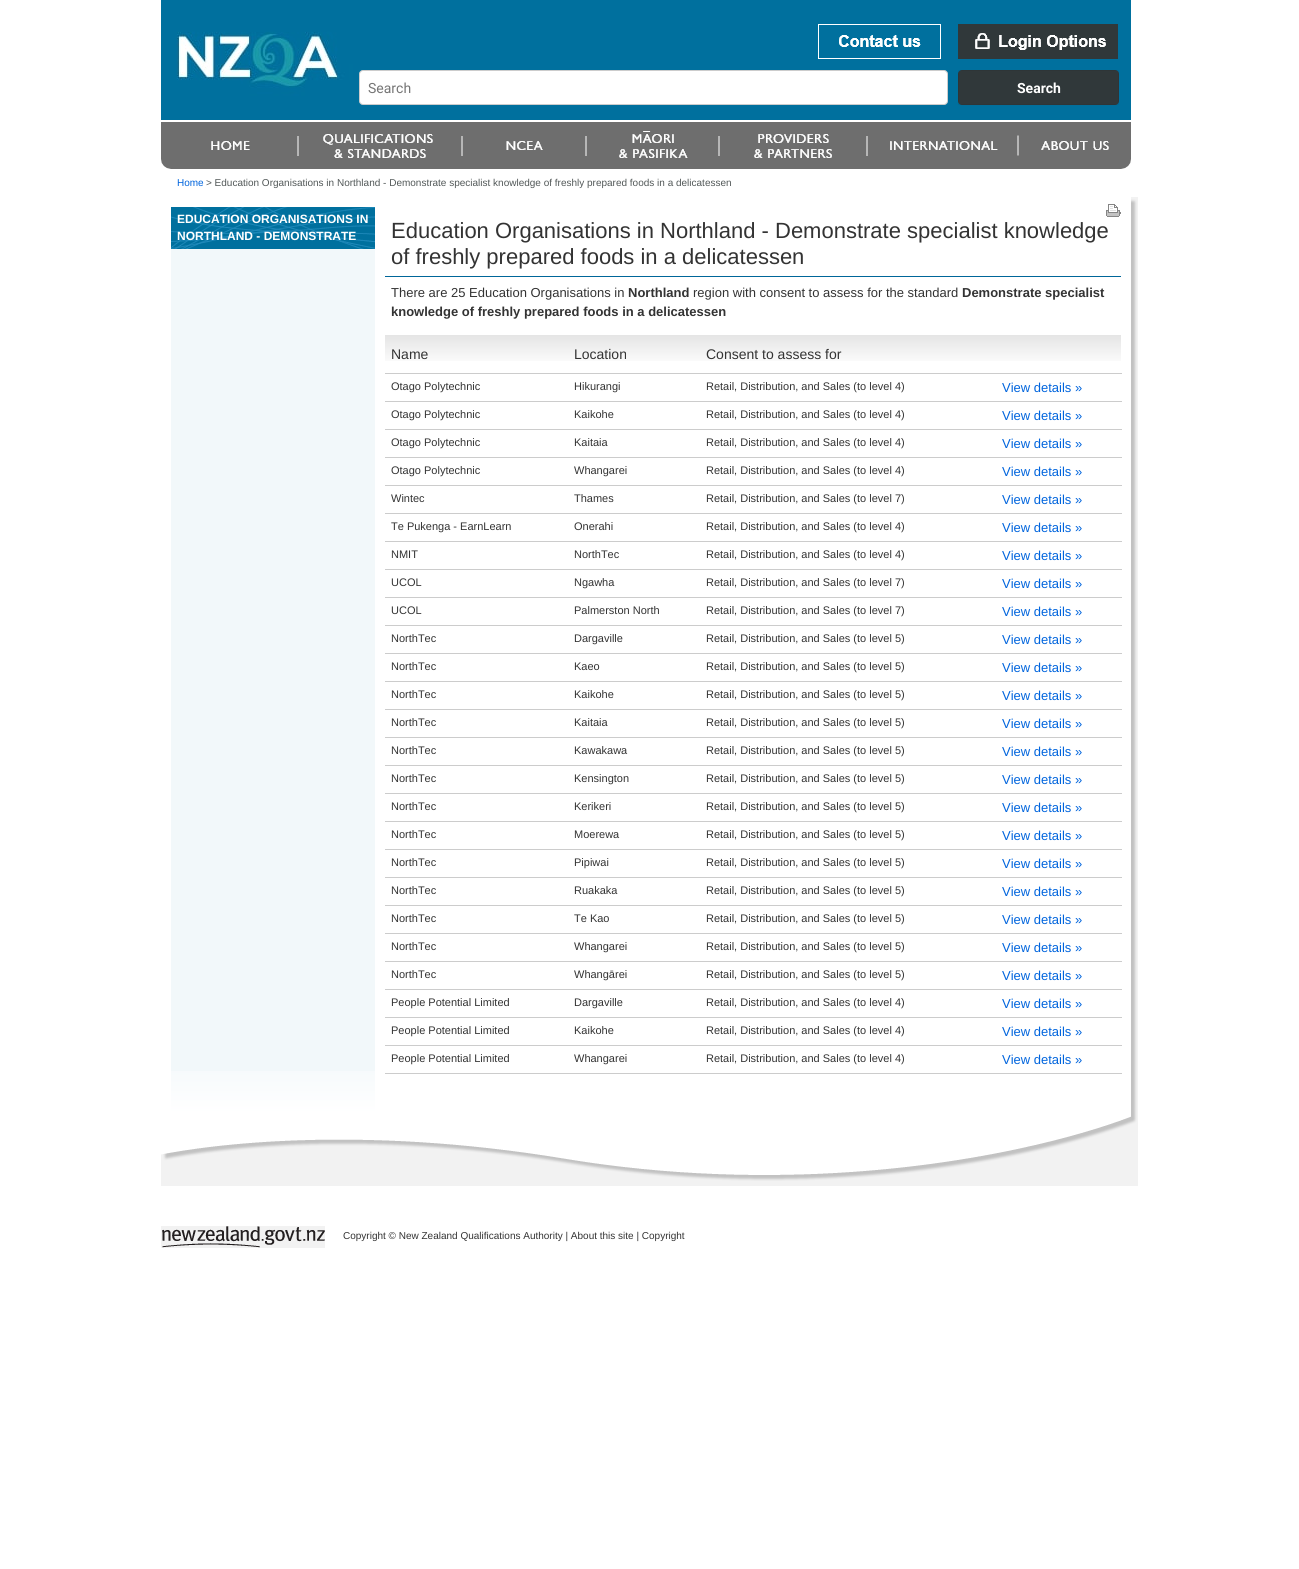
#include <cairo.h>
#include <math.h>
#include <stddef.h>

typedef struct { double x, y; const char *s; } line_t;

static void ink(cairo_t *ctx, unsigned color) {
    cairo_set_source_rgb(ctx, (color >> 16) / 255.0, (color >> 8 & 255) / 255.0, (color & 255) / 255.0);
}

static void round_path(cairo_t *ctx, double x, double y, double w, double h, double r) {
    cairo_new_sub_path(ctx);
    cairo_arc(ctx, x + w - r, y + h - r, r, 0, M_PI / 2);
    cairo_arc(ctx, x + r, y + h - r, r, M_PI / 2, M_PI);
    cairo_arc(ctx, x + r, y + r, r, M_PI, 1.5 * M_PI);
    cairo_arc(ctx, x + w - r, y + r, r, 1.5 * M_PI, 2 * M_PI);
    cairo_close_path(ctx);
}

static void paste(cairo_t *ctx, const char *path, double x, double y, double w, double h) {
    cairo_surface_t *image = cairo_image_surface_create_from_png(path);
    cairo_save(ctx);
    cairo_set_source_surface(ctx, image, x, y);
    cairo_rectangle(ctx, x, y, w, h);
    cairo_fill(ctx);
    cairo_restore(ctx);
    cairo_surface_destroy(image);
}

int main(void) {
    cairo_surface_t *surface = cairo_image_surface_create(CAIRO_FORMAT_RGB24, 1299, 1569);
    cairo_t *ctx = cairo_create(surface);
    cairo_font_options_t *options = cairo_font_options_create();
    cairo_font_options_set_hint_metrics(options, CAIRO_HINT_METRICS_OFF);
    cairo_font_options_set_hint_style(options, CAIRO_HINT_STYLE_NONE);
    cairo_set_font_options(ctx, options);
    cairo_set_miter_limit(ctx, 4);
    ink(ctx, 0xFFFFFF);
    cairo_paint(ctx);
    paste(ctx, "media/1.png", 161, 0, 970, 120);
    paste(ctx, "media/2.png", 818, 24, 123, 35);
    paste(ctx, "media/3.png", 958, 24, 160, 35);
    ink(ctx, 0xFFFFFF);
    round_path(ctx, 359.5, 70.5, 588, 34, 3.5);
    cairo_fill_preserve(ctx);
    ink(ctx, 0xCCCCCC);
    cairo_set_line_width(ctx, 1);
    cairo_stroke(ctx);
    cairo_select_font_face(ctx, "Roboto", CAIRO_FONT_SLANT_NORMAL, CAIRO_FONT_WEIGHT_NORMAL);
    cairo_set_font_size(ctx, 14);
    ink(ctx, 0x757575);
    cairo_move_to(ctx, 368, 93);
    cairo_show_text(ctx, "Search");
    ink(ctx, 0x036E9A);
    cairo_new_path(ctx);
    cairo_move_to(ctx, 958, 101);
    cairo_curve_to(ctx, 958, 103, 959, 105, 961, 106);
    cairo_line_to(ctx, 1116, 106);
    cairo_curve_to(ctx, 1118, 105, 1119, 103, 1119, 101);
    cairo_curve_to(ctx, 1119, 103, 1117, 105, 1115, 105);
    cairo_line_to(ctx, 962, 105);
    cairo_curve_to(ctx, 960, 105, 958, 103, 958, 101);
    cairo_close_path(ctx);
    cairo_fill(ctx);
    ink(ctx, 0x30383A);
    round_path(ctx, 958, 70, 161, 35, 4);
    cairo_fill(ctx);
    cairo_rectangle(ctx, 958.5, 70.5, 160, 34);
    cairo_set_source_rgba(ctx, 0, 0, 0, 0.05);
    cairo_stroke(ctx);
    cairo_select_font_face(ctx, "Roboto", CAIRO_FONT_SLANT_NORMAL, CAIRO_FONT_WEIGHT_BOLD);
    ink(ctx, 0xFFFFFF);
    cairo_move_to(ctx, 1017, 93);
    cairo_show_text(ctx, "Search");
    paste(ctx, "media/4.png", 161, 122, 970, 47);
    cairo_select_font_face(ctx, "Liberation Sans", CAIRO_FONT_SLANT_NORMAL, CAIRO_FONT_WEIGHT_NORMAL);
    cairo_set_font_size(ctx, 10);
    ink(ctx, 0x0064DD);
    cairo_move_to(ctx, 177, 186);
    cairo_show_text(ctx, "Home");
    ink(ctx, 0x525858);
    cairo_move_to(ctx, 206, 186);
    cairo_show_text(ctx, "> Education Organisations in Northland - Demonstrate specialist knowledge of freshly prepared foods in a delicatessen");
    paste(ctx, "media/5.png", 171, 197, 967, 919);
    ink(ctx, 0xFFFFFF);
    cairo_rectangle(ctx, 171, 197, 204, 10);
    cairo_fill(ctx);
    paste(ctx, "media/6.png", 171, 207, 204, 42);
    cairo_select_font_face(ctx, "Liberation Sans", CAIRO_FONT_SLANT_NORMAL, CAIRO_FONT_WEIGHT_BOLD);
    cairo_set_font_size(ctx, 12);
    cairo_move_to(ctx, 177, 223);
    cairo_show_text(ctx, "EDUCATION ORGANISATIONS IN");
    cairo_move_to(ctx, 177, 240);
    cairo_show_text(ctx, "NORTHLAND - DEMONSTRATE");
    paste(ctx, "media/7.png", 171, 1071, 204, 45);
    paste(ctx, "media/8.png", 1131, 197, 6, 6);
    paste(ctx, "media/9.png", 1106, 204, 15, 13);
    ink(ctx, 0x006699);
    cairo_rectangle(ctx, 385, 276, 736, 1);
    cairo_fill(ctx);
    cairo_select_font_face(ctx, "Liberation Sans", CAIRO_FONT_SLANT_NORMAL, CAIRO_FONT_WEIGHT_NORMAL);
    cairo_set_font_size(ctx, 22);
    ink(ctx, 0x333333);
    cairo_move_to(ctx, 391, 238);
    cairo_show_text(ctx, "Education Organisations in Northland - Demonstrate specialist knowledge");
    cairo_move_to(ctx, 391, 264);
    cairo_show_text(ctx, "of freshly prepared foods in a delicatessen");
    cairo_set_font_size(ctx, 13);
    cairo_move_to(ctx, 391, 297);
    cairo_show_text(ctx, "There are 25 Education Organisations in");
    cairo_select_font_face(ctx, "Liberation Sans", CAIRO_FONT_SLANT_NORMAL, CAIRO_FONT_WEIGHT_BOLD);
    cairo_move_to(ctx, 628, 297);
    cairo_show_text(ctx, "Northland");
    cairo_select_font_face(ctx, "Liberation Sans", CAIRO_FONT_SLANT_NORMAL, CAIRO_FONT_WEIGHT_NORMAL);
    cairo_move_to(ctx, 693, 297);
    cairo_show_text(ctx, "region with consent to assess for the standard");
    cairo_select_font_face(ctx, "Liberation Sans", CAIRO_FONT_SLANT_NORMAL, CAIRO_FONT_WEIGHT_BOLD);
    cairo_move_to(ctx, 962, 297);
    cairo_show_text(ctx, "Demonstrate specialist");
    cairo_move_to(ctx, 391, 316);
    cairo_show_text(ctx, "knowledge of freshly prepared foods in a delicatessen");
    paste(ctx, "media/10.png", 996, 335, 125, 26);
    ink(ctx, 0xCCCCCC);
    cairo_rectangle(ctx, 385, 373, 737, 1);
    cairo_fill(ctx);
    paste(ctx, "media/11.png", 385, 335, 183, 26);
    cairo_select_font_face(ctx, "Liberation Sans", CAIRO_FONT_SLANT_NORMAL, CAIRO_FONT_WEIGHT_NORMAL);
    cairo_set_font_size(ctx, 14);
    ink(ctx, 0x333333);
    cairo_move_to(ctx, 391, 359);
    cairo_show_text(ctx, "Name");
    paste(ctx, "media/12.png", 568, 335, 132, 26);
    cairo_move_to(ctx, 574, 359);
    cairo_show_text(ctx, "Location");
    paste(ctx, "media/13.png", 700, 335, 296, 26);
    cairo_move_to(ctx, 706, 359);
    cairo_show_text(ctx, "Consent to assess for");
    cairo_set_font_size(ctx, 11);
    {
        static const line_t items[] = {
            {391, 390, "Otago Polytechnic"},
            {574, 390, "Hikurangi"},
            {706, 390, "Retail, Distribution, and Sales (to level 4)"},
        };
        for (size_t i = 0; i < sizeof items / sizeof *items; i++) {
            cairo_move_to(ctx, items[i].x, items[i].y);
            cairo_show_text(ctx, items[i].s);
        }
    }
    ink(ctx, 0xCCCCCC);
    cairo_rectangle(ctx, 385, 401, 737, 1);
    cairo_fill(ctx);
    cairo_set_font_size(ctx, 13);
    ink(ctx, 0x0064DD);
    cairo_move_to(ctx, 1002, 392);
    cairo_show_text(ctx, "View details »");
    cairo_set_font_size(ctx, 11);
    ink(ctx, 0x333333);
    {
        static const line_t items[] = {
            {391, 418, "Otago Polytechnic"},
            {574, 418, "Kaikohe"},
            {706, 418, "Retail, Distribution, and Sales (to level 4)"},
        };
        for (size_t i = 0; i < sizeof items / sizeof *items; i++) {
            cairo_move_to(ctx, items[i].x, items[i].y);
            cairo_show_text(ctx, items[i].s);
        }
    }
    ink(ctx, 0xCCCCCC);
    cairo_rectangle(ctx, 385, 429, 737, 1);
    cairo_fill(ctx);
    cairo_set_font_size(ctx, 13);
    ink(ctx, 0x0064DD);
    cairo_move_to(ctx, 1002, 420);
    cairo_show_text(ctx, "View details »");
    cairo_set_font_size(ctx, 11);
    ink(ctx, 0x333333);
    {
        static const line_t items[] = {
            {391, 446, "Otago Polytechnic"},
            {574, 446, "Kaitaia"},
            {706, 446, "Retail, Distribution, and Sales (to level 4)"},
        };
        for (size_t i = 0; i < sizeof items / sizeof *items; i++) {
            cairo_move_to(ctx, items[i].x, items[i].y);
            cairo_show_text(ctx, items[i].s);
        }
    }
    ink(ctx, 0xCCCCCC);
    cairo_rectangle(ctx, 385, 457, 737, 1);
    cairo_fill(ctx);
    cairo_set_font_size(ctx, 13);
    ink(ctx, 0x0064DD);
    cairo_move_to(ctx, 1002, 448);
    cairo_show_text(ctx, "View details »");
    cairo_set_font_size(ctx, 11);
    ink(ctx, 0x333333);
    {
        static const line_t items[] = {
            {391, 474, "Otago Polytechnic"},
            {574, 474, "Whangarei"},
            {706, 474, "Retail, Distribution, and Sales (to level 4)"},
        };
        for (size_t i = 0; i < sizeof items / sizeof *items; i++) {
            cairo_move_to(ctx, items[i].x, items[i].y);
            cairo_show_text(ctx, items[i].s);
        }
    }
    ink(ctx, 0xCCCCCC);
    cairo_rectangle(ctx, 385, 485, 737, 1);
    cairo_fill(ctx);
    cairo_set_font_size(ctx, 13);
    ink(ctx, 0x0064DD);
    cairo_move_to(ctx, 1002, 476);
    cairo_show_text(ctx, "View details »");
    cairo_set_font_size(ctx, 11);
    ink(ctx, 0x333333);
    {
        static const line_t items[] = {
            {391, 502, "Wintec"},
            {574, 502, "Thames"},
            {706, 502, "Retail, Distribution, and Sales (to level 7)"},
        };
        for (size_t i = 0; i < sizeof items / sizeof *items; i++) {
            cairo_move_to(ctx, items[i].x, items[i].y);
            cairo_show_text(ctx, items[i].s);
        }
    }
    ink(ctx, 0xCCCCCC);
    cairo_rectangle(ctx, 385, 513, 737, 1);
    cairo_fill(ctx);
    cairo_set_font_size(ctx, 13);
    ink(ctx, 0x0064DD);
    cairo_move_to(ctx, 1002, 504);
    cairo_show_text(ctx, "View details »");
    cairo_set_font_size(ctx, 11);
    ink(ctx, 0x333333);
    {
        static const line_t items[] = {
            {391, 530, "Te Pukenga - EarnLearn"},
            {574, 530, "Onerahi"},
            {706, 530, "Retail, Distribution, and Sales (to level 4)"},
        };
        for (size_t i = 0; i < sizeof items / sizeof *items; i++) {
            cairo_move_to(ctx, items[i].x, items[i].y);
            cairo_show_text(ctx, items[i].s);
        }
    }
    ink(ctx, 0xCCCCCC);
    cairo_rectangle(ctx, 385, 541, 737, 1);
    cairo_fill(ctx);
    cairo_set_font_size(ctx, 13);
    ink(ctx, 0x0064DD);
    cairo_move_to(ctx, 1002, 532);
    cairo_show_text(ctx, "View details »");
    cairo_set_font_size(ctx, 11);
    ink(ctx, 0x333333);
    {
        static const line_t items[] = {
            {391, 558, "NMIT"},
            {574, 558, "NorthTec"},
            {706, 558, "Retail, Distribution, and Sales (to level 4)"},
        };
        for (size_t i = 0; i < sizeof items / sizeof *items; i++) {
            cairo_move_to(ctx, items[i].x, items[i].y);
            cairo_show_text(ctx, items[i].s);
        }
    }
    ink(ctx, 0xCCCCCC);
    cairo_rectangle(ctx, 385, 569, 737, 1);
    cairo_fill(ctx);
    cairo_set_font_size(ctx, 13);
    ink(ctx, 0x0064DD);
    cairo_move_to(ctx, 1002, 560);
    cairo_show_text(ctx, "View details »");
    cairo_set_font_size(ctx, 11);
    ink(ctx, 0x333333);
    {
        static const line_t items[] = {
            {391, 586, "UCOL"},
            {574, 586, "Ngawha"},
            {706, 586, "Retail, Distribution, and Sales (to level 7)"},
        };
        for (size_t i = 0; i < sizeof items / sizeof *items; i++) {
            cairo_move_to(ctx, items[i].x, items[i].y);
            cairo_show_text(ctx, items[i].s);
        }
    }
    ink(ctx, 0xCCCCCC);
    cairo_rectangle(ctx, 385, 597, 737, 1);
    cairo_fill(ctx);
    cairo_set_font_size(ctx, 13);
    ink(ctx, 0x0064DD);
    cairo_move_to(ctx, 1002, 588);
    cairo_show_text(ctx, "View details »");
    cairo_set_font_size(ctx, 11);
    ink(ctx, 0x333333);
    {
        static const line_t items[] = {
            {391, 614, "UCOL"},
            {574, 614, "Palmerston North"},
            {706, 614, "Retail, Distribution, and Sales (to level 7)"},
        };
        for (size_t i = 0; i < sizeof items / sizeof *items; i++) {
            cairo_move_to(ctx, items[i].x, items[i].y);
            cairo_show_text(ctx, items[i].s);
        }
    }
    ink(ctx, 0xCCCCCC);
    cairo_rectangle(ctx, 385, 625, 737, 1);
    cairo_fill(ctx);
    cairo_set_font_size(ctx, 13);
    ink(ctx, 0x0064DD);
    cairo_move_to(ctx, 1002, 616);
    cairo_show_text(ctx, "View details »");
    cairo_set_font_size(ctx, 11);
    ink(ctx, 0x333333);
    {
        static const line_t items[] = {
            {391, 642, "NorthTec"},
            {574, 642, "Dargaville"},
            {706, 642, "Retail, Distribution, and Sales (to level 5)"},
        };
        for (size_t i = 0; i < sizeof items / sizeof *items; i++) {
            cairo_move_to(ctx, items[i].x, items[i].y);
            cairo_show_text(ctx, items[i].s);
        }
    }
    ink(ctx, 0xCCCCCC);
    cairo_rectangle(ctx, 385, 653, 737, 1);
    cairo_fill(ctx);
    cairo_set_font_size(ctx, 13);
    ink(ctx, 0x0064DD);
    cairo_move_to(ctx, 1002, 644);
    cairo_show_text(ctx, "View details »");
    cairo_set_font_size(ctx, 11);
    ink(ctx, 0x333333);
    {
        static const line_t items[] = {
            {391, 670, "NorthTec"},
            {574, 670, "Kaeo"},
            {706, 670, "Retail, Distribution, and Sales (to level 5)"},
        };
        for (size_t i = 0; i < sizeof items / sizeof *items; i++) {
            cairo_move_to(ctx, items[i].x, items[i].y);
            cairo_show_text(ctx, items[i].s);
        }
    }
    ink(ctx, 0xCCCCCC);
    cairo_rectangle(ctx, 385, 681, 737, 1);
    cairo_fill(ctx);
    cairo_set_font_size(ctx, 13);
    ink(ctx, 0x0064DD);
    cairo_move_to(ctx, 1002, 672);
    cairo_show_text(ctx, "View details »");
    cairo_set_font_size(ctx, 11);
    ink(ctx, 0x333333);
    {
        static const line_t items[] = {
            {391, 698, "NorthTec"},
            {574, 698, "Kaikohe"},
            {706, 698, "Retail, Distribution, and Sales (to level 5)"},
        };
        for (size_t i = 0; i < sizeof items / sizeof *items; i++) {
            cairo_move_to(ctx, items[i].x, items[i].y);
            cairo_show_text(ctx, items[i].s);
        }
    }
    ink(ctx, 0xCCCCCC);
    cairo_rectangle(ctx, 385, 709, 737, 1);
    cairo_fill(ctx);
    cairo_set_font_size(ctx, 13);
    ink(ctx, 0x0064DD);
    cairo_move_to(ctx, 1002, 700);
    cairo_show_text(ctx, "View details »");
    cairo_set_font_size(ctx, 11);
    ink(ctx, 0x333333);
    {
        static const line_t items[] = {
            {391, 726, "NorthTec"},
            {574, 726, "Kaitaia"},
            {706, 726, "Retail, Distribution, and Sales (to level 5)"},
        };
        for (size_t i = 0; i < sizeof items / sizeof *items; i++) {
            cairo_move_to(ctx, items[i].x, items[i].y);
            cairo_show_text(ctx, items[i].s);
        }
    }
    ink(ctx, 0xCCCCCC);
    cairo_rectangle(ctx, 385, 737, 737, 1);
    cairo_fill(ctx);
    cairo_set_font_size(ctx, 13);
    ink(ctx, 0x0064DD);
    cairo_move_to(ctx, 1002, 728);
    cairo_show_text(ctx, "View details »");
    cairo_set_font_size(ctx, 11);
    ink(ctx, 0x333333);
    {
        static const line_t items[] = {
            {391, 754, "NorthTec"},
            {574, 754, "Kawakawa"},
            {706, 754, "Retail, Distribution, and Sales (to level 5)"},
        };
        for (size_t i = 0; i < sizeof items / sizeof *items; i++) {
            cairo_move_to(ctx, items[i].x, items[i].y);
            cairo_show_text(ctx, items[i].s);
        }
    }
    ink(ctx, 0xCCCCCC);
    cairo_rectangle(ctx, 385, 765, 737, 1);
    cairo_fill(ctx);
    cairo_set_font_size(ctx, 13);
    ink(ctx, 0x0064DD);
    cairo_move_to(ctx, 1002, 756);
    cairo_show_text(ctx, "View details »");
    cairo_set_font_size(ctx, 11);
    ink(ctx, 0x333333);
    {
        static const line_t items[] = {
            {391, 782, "NorthTec"},
            {574, 782, "Kensington"},
            {706, 782, "Retail, Distribution, and Sales (to level 5)"},
        };
        for (size_t i = 0; i < sizeof items / sizeof *items; i++) {
            cairo_move_to(ctx, items[i].x, items[i].y);
            cairo_show_text(ctx, items[i].s);
        }
    }
    ink(ctx, 0xCCCCCC);
    cairo_rectangle(ctx, 385, 793, 737, 1);
    cairo_fill(ctx);
    cairo_set_font_size(ctx, 13);
    ink(ctx, 0x0064DD);
    cairo_move_to(ctx, 1002, 784);
    cairo_show_text(ctx, "View details »");
    cairo_set_font_size(ctx, 11);
    ink(ctx, 0x333333);
    {
        static const line_t items[] = {
            {391, 810, "NorthTec"},
            {574, 810, "Kerikeri"},
            {706, 810, "Retail, Distribution, and Sales (to level 5)"},
        };
        for (size_t i = 0; i < sizeof items / sizeof *items; i++) {
            cairo_move_to(ctx, items[i].x, items[i].y);
            cairo_show_text(ctx, items[i].s);
        }
    }
    ink(ctx, 0xCCCCCC);
    cairo_rectangle(ctx, 385, 821, 737, 1);
    cairo_fill(ctx);
    cairo_set_font_size(ctx, 13);
    ink(ctx, 0x0064DD);
    cairo_move_to(ctx, 1002, 812);
    cairo_show_text(ctx, "View details »");
    cairo_set_font_size(ctx, 11);
    ink(ctx, 0x333333);
    {
        static const line_t items[] = {
            {391, 838, "NorthTec"},
            {574, 838, "Moerewa"},
            {706, 838, "Retail, Distribution, and Sales (to level 5)"},
        };
        for (size_t i = 0; i < sizeof items / sizeof *items; i++) {
            cairo_move_to(ctx, items[i].x, items[i].y);
            cairo_show_text(ctx, items[i].s);
        }
    }
    ink(ctx, 0xCCCCCC);
    cairo_rectangle(ctx, 385, 849, 737, 1);
    cairo_fill(ctx);
    cairo_set_font_size(ctx, 13);
    ink(ctx, 0x0064DD);
    cairo_move_to(ctx, 1002, 840);
    cairo_show_text(ctx, "View details »");
    cairo_set_font_size(ctx, 11);
    ink(ctx, 0x333333);
    {
        static const line_t items[] = {
            {391, 866, "NorthTec"},
            {574, 866, "Pipiwai"},
            {706, 866, "Retail, Distribution, and Sales (to level 5)"},
        };
        for (size_t i = 0; i < sizeof items / sizeof *items; i++) {
            cairo_move_to(ctx, items[i].x, items[i].y);
            cairo_show_text(ctx, items[i].s);
        }
    }
    ink(ctx, 0xCCCCCC);
    cairo_rectangle(ctx, 385, 877, 737, 1);
    cairo_fill(ctx);
    cairo_set_font_size(ctx, 13);
    ink(ctx, 0x0064DD);
    cairo_move_to(ctx, 1002, 868);
    cairo_show_text(ctx, "View details »");
    cairo_set_font_size(ctx, 11);
    ink(ctx, 0x333333);
    {
        static const line_t items[] = {
            {391, 894, "NorthTec"},
            {574, 894, "Ruakaka"},
            {706, 894, "Retail, Distribution, and Sales (to level 5)"},
        };
        for (size_t i = 0; i < sizeof items / sizeof *items; i++) {
            cairo_move_to(ctx, items[i].x, items[i].y);
            cairo_show_text(ctx, items[i].s);
        }
    }
    ink(ctx, 0xCCCCCC);
    cairo_rectangle(ctx, 385, 905, 737, 1);
    cairo_fill(ctx);
    cairo_set_font_size(ctx, 13);
    ink(ctx, 0x0064DD);
    cairo_move_to(ctx, 1002, 896);
    cairo_show_text(ctx, "View details »");
    cairo_set_font_size(ctx, 11);
    ink(ctx, 0x333333);
    {
        static const line_t items[] = {
            {391, 922, "NorthTec"},
            {574, 922, "Te Kao"},
            {706, 922, "Retail, Distribution, and Sales (to level 5)"},
        };
        for (size_t i = 0; i < sizeof items / sizeof *items; i++) {
            cairo_move_to(ctx, items[i].x, items[i].y);
            cairo_show_text(ctx, items[i].s);
        }
    }
    ink(ctx, 0xCCCCCC);
    cairo_rectangle(ctx, 385, 933, 737, 1);
    cairo_fill(ctx);
    cairo_set_font_size(ctx, 13);
    ink(ctx, 0x0064DD);
    cairo_move_to(ctx, 1002, 924);
    cairo_show_text(ctx, "View details »");
    cairo_set_font_size(ctx, 11);
    ink(ctx, 0x333333);
    {
        static const line_t items[] = {
            {391, 950, "NorthTec"},
            {574, 950, "Whangarei"},
            {706, 950, "Retail, Distribution, and Sales (to level 5)"},
        };
        for (size_t i = 0; i < sizeof items / sizeof *items; i++) {
            cairo_move_to(ctx, items[i].x, items[i].y);
            cairo_show_text(ctx, items[i].s);
        }
    }
    ink(ctx, 0xCCCCCC);
    cairo_rectangle(ctx, 385, 961, 737, 1);
    cairo_fill(ctx);
    cairo_set_font_size(ctx, 13);
    ink(ctx, 0x0064DD);
    cairo_move_to(ctx, 1002, 952);
    cairo_show_text(ctx, "View details »");
    cairo_set_font_size(ctx, 11);
    ink(ctx, 0x333333);
    {
        static const line_t items[] = {
            {391, 978, "NorthTec"},
            {574, 978, "Whangārei"},
            {706, 978, "Retail, Distribution, and Sales (to level 5)"},
        };
        for (size_t i = 0; i < sizeof items / sizeof *items; i++) {
            cairo_move_to(ctx, items[i].x, items[i].y);
            cairo_show_text(ctx, items[i].s);
        }
    }
    ink(ctx, 0xCCCCCC);
    cairo_rectangle(ctx, 385, 989, 737, 1);
    cairo_fill(ctx);
    cairo_set_font_size(ctx, 13);
    ink(ctx, 0x0064DD);
    cairo_move_to(ctx, 1002, 980);
    cairo_show_text(ctx, "View details »");
    cairo_set_font_size(ctx, 11);
    ink(ctx, 0x333333);
    {
        static const line_t items[] = {
            {391, 1006, "People Potential Limited"},
            {574, 1006, "Dargaville"},
            {706, 1006, "Retail, Distribution, and Sales (to level 4)"},
        };
        for (size_t i = 0; i < sizeof items / sizeof *items; i++) {
            cairo_move_to(ctx, items[i].x, items[i].y);
            cairo_show_text(ctx, items[i].s);
        }
    }
    ink(ctx, 0xCCCCCC);
    cairo_rectangle(ctx, 385, 1017, 737, 1);
    cairo_fill(ctx);
    cairo_set_font_size(ctx, 13);
    ink(ctx, 0x0064DD);
    cairo_move_to(ctx, 1002, 1008);
    cairo_show_text(ctx, "View details »");
    cairo_set_font_size(ctx, 11);
    ink(ctx, 0x333333);
    {
        static const line_t items[] = {
            {391, 1034, "People Potential Limited"},
            {574, 1034, "Kaikohe"},
            {706, 1034, "Retail, Distribution, and Sales (to level 4)"},
        };
        for (size_t i = 0; i < sizeof items / sizeof *items; i++) {
            cairo_move_to(ctx, items[i].x, items[i].y);
            cairo_show_text(ctx, items[i].s);
        }
    }
    ink(ctx, 0xCCCCCC);
    cairo_rectangle(ctx, 385, 1045, 737, 1);
    cairo_fill(ctx);
    cairo_set_font_size(ctx, 13);
    ink(ctx, 0x0064DD);
    cairo_move_to(ctx, 1002, 1036);
    cairo_show_text(ctx, "View details »");
    cairo_set_font_size(ctx, 11);
    ink(ctx, 0x333333);
    {
        static const line_t items[] = {
            {391, 1062, "People Potential Limited"},
            {574, 1062, "Whangarei"},
            {706, 1062, "Retail, Distribution, and Sales (to level 4)"},
        };
        for (size_t i = 0; i < sizeof items / sizeof *items; i++) {
            cairo_move_to(ctx, items[i].x, items[i].y);
            cairo_show_text(ctx, items[i].s);
        }
    }
    ink(ctx, 0xCCCCCC);
    cairo_rectangle(ctx, 385, 1073, 737, 1);
    cairo_fill(ctx);
    cairo_set_font_size(ctx, 13);
    ink(ctx, 0x0064DD);
    cairo_move_to(ctx, 1002, 1064);
    cairo_show_text(ctx, "View details »");
    paste(ctx, "media/14.png", 161, 1116, 977, 70);
    paste(ctx, "media/15.png", 161, 1226, 164, 22);
    cairo_set_font_size(ctx, 10);
    ink(ctx, 0x333333);
    cairo_move_to(ctx, 343, 1239);
    cairo_show_text(ctx, "Copyright © New Zealand Qualifications Authority | About this site | Copyright");
    cairo_surface_write_to_png(surface, "image.png");
    cairo_font_options_destroy(options);
    cairo_destroy(ctx);
    cairo_surface_destroy(surface);
    return 0;
}
